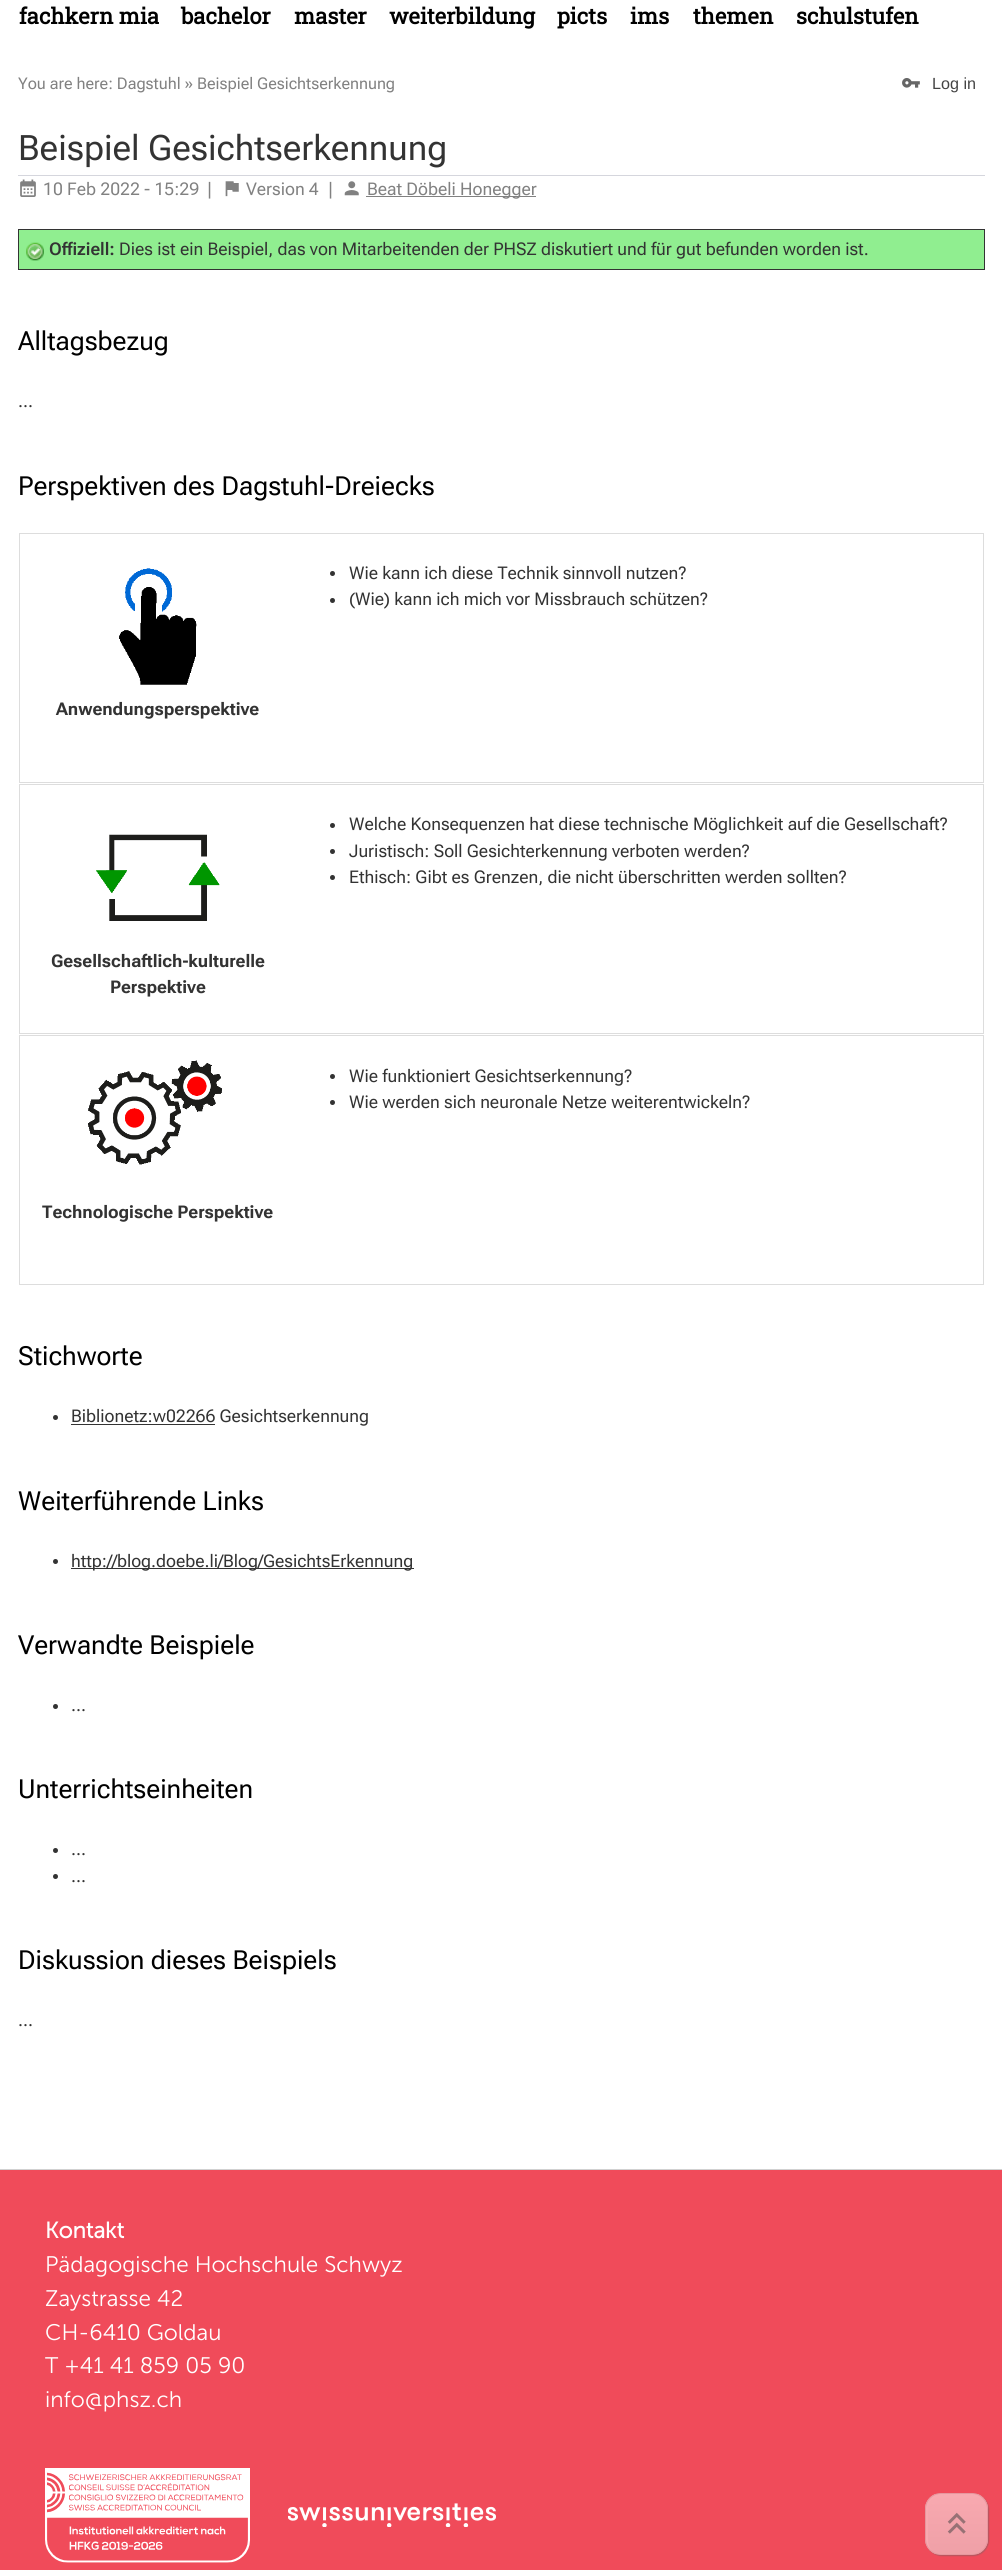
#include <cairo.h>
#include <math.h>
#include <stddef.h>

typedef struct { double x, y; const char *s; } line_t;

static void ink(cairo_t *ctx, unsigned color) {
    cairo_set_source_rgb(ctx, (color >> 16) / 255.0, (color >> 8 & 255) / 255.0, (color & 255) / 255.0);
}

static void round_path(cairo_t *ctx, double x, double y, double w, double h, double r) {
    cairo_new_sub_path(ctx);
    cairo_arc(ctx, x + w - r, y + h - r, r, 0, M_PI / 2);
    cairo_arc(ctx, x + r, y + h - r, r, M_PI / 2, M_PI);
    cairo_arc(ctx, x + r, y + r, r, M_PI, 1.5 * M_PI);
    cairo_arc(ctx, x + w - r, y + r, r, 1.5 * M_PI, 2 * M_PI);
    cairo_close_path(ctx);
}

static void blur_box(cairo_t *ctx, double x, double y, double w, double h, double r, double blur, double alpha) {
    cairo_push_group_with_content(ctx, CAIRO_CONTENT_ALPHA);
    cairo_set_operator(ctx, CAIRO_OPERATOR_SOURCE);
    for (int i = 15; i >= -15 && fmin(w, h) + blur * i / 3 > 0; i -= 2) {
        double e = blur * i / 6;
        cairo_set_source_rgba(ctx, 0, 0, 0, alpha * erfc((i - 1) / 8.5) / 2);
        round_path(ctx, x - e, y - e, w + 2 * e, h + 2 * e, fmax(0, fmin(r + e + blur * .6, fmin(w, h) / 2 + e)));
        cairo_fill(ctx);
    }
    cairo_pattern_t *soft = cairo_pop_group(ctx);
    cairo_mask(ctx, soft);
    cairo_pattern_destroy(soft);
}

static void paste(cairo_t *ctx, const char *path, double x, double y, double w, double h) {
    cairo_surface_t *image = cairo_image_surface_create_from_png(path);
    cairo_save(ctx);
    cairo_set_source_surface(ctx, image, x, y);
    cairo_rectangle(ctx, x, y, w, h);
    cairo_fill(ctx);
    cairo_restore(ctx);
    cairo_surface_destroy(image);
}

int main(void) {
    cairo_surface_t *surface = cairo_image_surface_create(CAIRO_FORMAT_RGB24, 1002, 2570);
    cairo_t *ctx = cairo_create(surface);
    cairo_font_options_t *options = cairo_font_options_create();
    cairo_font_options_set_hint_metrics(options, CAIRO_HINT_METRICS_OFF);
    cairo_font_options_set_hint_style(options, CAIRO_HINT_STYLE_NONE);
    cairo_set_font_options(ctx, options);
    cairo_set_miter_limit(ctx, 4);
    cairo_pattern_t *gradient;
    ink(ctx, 0xFFFFFF);
    cairo_paint(ctx);
    cairo_select_font_face(ctx, "Roboto Slab", CAIRO_FONT_SLANT_NORMAL, CAIRO_FONT_WEIGHT_BOLD);
    cairo_set_font_size(ctx, 22);
    ink(ctx, 0x000000);
    {
        static const line_t items[] = {
            {19, 24, "fachkern mia"},
            {181, 24, "bachelor"},
            {294, 24, "master"},
            {389, 24, "weiterbildung"},
            {557, 24, "picts"},
            {630, 24, "ims"},
            {693, 24, "themen"},
            {796, 24, "schulstufen"},
        };
        for (size_t i = 0; i < sizeof items / sizeof *items; i++) {
            cairo_move_to(ctx, items[i].x, items[i].y);
            cairo_show_text(ctx, items[i].s);
        }
    }
    cairo_select_font_face(ctx, "Roboto Flex", CAIRO_FONT_SLANT_ITALIC, CAIRO_FONT_WEIGHT_NORMAL);
    cairo_set_font_size(ctx, 16.15);
    ink(ctx, 0x818181);
    cairo_move_to(ctx, 18, 89);
    cairo_show_text(ctx, "You are here: Dagstuhl » Beispiel Gesichtserkennung");
    paste(ctx, "media/1.png", 902, 78, 18, 10);
    cairo_select_font_face(ctx, "Liberation Sans", CAIRO_FONT_SLANT_NORMAL, CAIRO_FONT_WEIGHT_NORMAL);
    ink(ctx, 0x444444);
    cairo_move_to(ctx, 932, 89);
    cairo_show_text(ctx, "Log in");
    ink(ctx, 0xD5D6DD);
    cairo_rectangle(ctx, 18, 175, 967, 1);
    cairo_fill(ctx);
    cairo_select_font_face(ctx, "Roboto Flex", CAIRO_FONT_SLANT_ITALIC, CAIRO_FONT_WEIGHT_NORMAL);
    cairo_set_font_size(ctx, 35);
    ink(ctx, 0x333333);
    cairo_move_to(ctx, 18, 160);
    cairo_show_text(ctx, "Beispiel Gesichtserkennung");
    paste(ctx, "media/2.png", 20, 179, 16, 18);
    cairo_set_font_size(ctx, 17.5);
    ink(ctx, 0x818181);
    cairo_move_to(ctx, 43, 195);
    cairo_show_text(ctx, "10 Feb 2022 - 15:29");
    cairo_move_to(ctx, 207, 195);
    cairo_show_text(ctx, "|");
    paste(ctx, "media/3.png", 225, 181, 14, 16);
    cairo_move_to(ctx, 246, 195);
    cairo_show_text(ctx, "Version 4");
    cairo_move_to(ctx, 328, 195);
    cairo_show_text(ctx, "|");
    paste(ctx, "media/4.png", 344, 181, 15, 15);
    cairo_rectangle(ctx, 366, 196, 170, 1);
    cairo_fill(ctx);
    cairo_move_to(ctx, 367, 195);
    cairo_show_text(ctx, "Beat Döbeli Honegger");
    ink(ctx, 0x90EE90);
    cairo_rectangle(ctx, 18.5, 229.5, 966, 40);
    cairo_fill_preserve(ctx);
    ink(ctx, 0x333333);
    cairo_set_line_width(ctx, 1);
    cairo_stroke(ctx);
    paste(ctx, "media/5.png", 26, 242, 18, 19);
    cairo_select_font_face(ctx, "Roboto Flex SemiBold", CAIRO_FONT_SLANT_ITALIC, CAIRO_FONT_WEIGHT_NORMAL);
    cairo_move_to(ctx, 49, 255);
    cairo_show_text(ctx, "Offiziell:");
    cairo_select_font_face(ctx, "Roboto Flex", CAIRO_FONT_SLANT_ITALIC, CAIRO_FONT_WEIGHT_NORMAL);
    cairo_move_to(ctx, 119, 255);
    cairo_show_text(ctx, "Dies ist ein Beispiel, das von Mitarbeitenden der PHSZ diskutiert und für gut befunden worden ist.");
    cairo_set_font_size(ctx, 26.25);
    ink(ctx, 0x000000);
    cairo_move_to(ctx, 18, 350);
    cairo_show_text(ctx, "Alltagsbezug");
    cairo_set_font_size(ctx, 17.5);
    ink(ctx, 0x333333);
    cairo_move_to(ctx, 18, 407);
    cairo_show_text(ctx, "...");
    cairo_set_font_size(ctx, 26.25);
    ink(ctx, 0x000000);
    cairo_move_to(ctx, 18, 495);
    cairo_show_text(ctx, "Perspektiven des Dagstuhl-Dreiecks");
    cairo_rectangle(ctx, 19.5, 533.5, 964, 249);
    ink(ctx, 0xDDDDDD);
    cairo_stroke(ctx);
    ink(ctx, 0x333333);
    cairo_arc(ctx, 332.5, 573.5, 2.5, 0, 2 * M_PI);
    cairo_fill(ctx);
    cairo_set_font_size(ctx, 17.5);
    cairo_move_to(ctx, 349, 579);
    cairo_show_text(ctx, "Wie kann ich diese Technik sinnvoll nutzen?");
    cairo_new_path(ctx);
    cairo_arc(ctx, 332.5, 600.5, 2.5, 0, 2 * M_PI);
    cairo_fill(ctx);
    cairo_move_to(ctx, 349, 605);
    cairo_show_text(ctx, "(Wie) kann ich mich vor Missbrauch schützen?");
    paste(ctx, "media/6.png", 119, 568, 78, 117);
    cairo_select_font_face(ctx, "Roboto Flex", CAIRO_FONT_SLANT_ITALIC, CAIRO_FONT_WEIGHT_BOLD);
    cairo_move_to(ctx, 56, 715);
    cairo_show_text(ctx, "Anwendungsperspektive");
    cairo_rectangle(ctx, 19.5, 784.5, 964, 249);
    ink(ctx, 0xDDDDDD);
    cairo_stroke(ctx);
    ink(ctx, 0x333333);
    cairo_arc(ctx, 332.5, 825.5, 2.5, 0, 2 * M_PI);
    cairo_fill(ctx);
    cairo_select_font_face(ctx, "Roboto Flex", CAIRO_FONT_SLANT_ITALIC, CAIRO_FONT_WEIGHT_NORMAL);
    cairo_move_to(ctx, 349, 830);
    cairo_show_text(ctx, "Welche Konsequenzen hat diese technische Möglichkeit auf die Gesellschaft?");
    cairo_new_path(ctx);
    cairo_arc(ctx, 332.5, 851.5, 2.5, 0, 2 * M_PI);
    cairo_fill(ctx);
    cairo_move_to(ctx, 349, 857);
    cairo_show_text(ctx, "Juristisch: Soll Gesichterkennung verboten werden?");
    cairo_new_path(ctx);
    cairo_arc(ctx, 332.5, 877.5, 2.5, 0, 2 * M_PI);
    cairo_fill(ctx);
    cairo_move_to(ctx, 349, 883);
    cairo_show_text(ctx, "Ethisch: Gibt es Grenzen, die nicht überschritten werden sollten?");
    paste(ctx, "media/7.png", 96, 834, 124, 87);
    cairo_select_font_face(ctx, "Roboto Flex", CAIRO_FONT_SLANT_ITALIC, CAIRO_FONT_WEIGHT_BOLD);
    cairo_move_to(ctx, 51, 967);
    cairo_show_text(ctx, "Gesellschaftlich-kulturelle");
    cairo_move_to(ctx, 110, 993);
    cairo_show_text(ctx, "Perspektive");
    cairo_rectangle(ctx, 19.5, 1035.5, 964, 249);
    ink(ctx, 0xDDDDDD);
    cairo_stroke(ctx);
    ink(ctx, 0x333333);
    cairo_arc(ctx, 332.5, 1076.5, 2.5, 0, 2 * M_PI);
    cairo_fill(ctx);
    cairo_select_font_face(ctx, "Roboto Flex", CAIRO_FONT_SLANT_ITALIC, CAIRO_FONT_WEIGHT_NORMAL);
    cairo_move_to(ctx, 349, 1082);
    cairo_show_text(ctx, "Wie funktioniert Gesichtserkennung?");
    cairo_new_path(ctx);
    cairo_arc(ctx, 332.5, 1102.5, 2.5, 0, 2 * M_PI);
    cairo_fill(ctx);
    cairo_move_to(ctx, 349, 1108);
    cairo_show_text(ctx, "Wie werden sich neuronale Netze weiterentwickeln?");
    paste(ctx, "media/8.png", 88, 1060, 134, 105);
    cairo_select_font_face(ctx, "Roboto Flex", CAIRO_FONT_SLANT_ITALIC, CAIRO_FONT_WEIGHT_BOLD);
    cairo_move_to(ctx, 42, 1218);
    cairo_show_text(ctx, "Technologische Perspektive");
    cairo_select_font_face(ctx, "Roboto Flex", CAIRO_FONT_SLANT_ITALIC, CAIRO_FONT_WEIGHT_NORMAL);
    cairo_set_font_size(ctx, 26.25);
    ink(ctx, 0x000000);
    cairo_move_to(ctx, 18, 1365);
    cairo_show_text(ctx, "Stichworte");
    ink(ctx, 0x333333);
    cairo_new_path(ctx);
    cairo_arc(ctx, 55.5, 1417.5, 2.5, 0, 2 * M_PI);
    cairo_fill(ctx);
    cairo_rectangle(ctx, 71, 1424, 144, 1);
    cairo_fill(ctx);
    cairo_set_font_size(ctx, 17.5);
    cairo_move_to(ctx, 71, 1422);
    cairo_show_text(ctx, "Biblionetz:w02266 Gesichtserkennung");
    cairo_set_font_size(ctx, 26.25);
    ink(ctx, 0x000000);
    cairo_move_to(ctx, 18, 1510);
    cairo_show_text(ctx, "Weiterführende Links");
    ink(ctx, 0x333333);
    cairo_new_path(ctx);
    cairo_arc(ctx, 55.5, 1561.5, 2.5, 0, 2 * M_PI);
    cairo_fill(ctx);
    cairo_rectangle(ctx, 71, 1568, 343, 1);
    cairo_fill(ctx);
    cairo_set_font_size(ctx, 17.5);
    cairo_move_to(ctx, 71, 1567);
    cairo_show_text(ctx, "http://blog.doebe.li/Blog/GesichtsErkennung");
    cairo_set_font_size(ctx, 26.25);
    ink(ctx, 0x000000);
    cairo_move_to(ctx, 18, 1654);
    cairo_show_text(ctx, "Verwandte Beispiele");
    ink(ctx, 0x333333);
    cairo_new_path(ctx);
    cairo_arc(ctx, 55.5, 1706.5, 2.5, 0, 2 * M_PI);
    cairo_fill(ctx);
    cairo_set_font_size(ctx, 17.5);
    cairo_move_to(ctx, 71, 1711);
    cairo_show_text(ctx, "...");
    cairo_set_font_size(ctx, 26.25);
    ink(ctx, 0x000000);
    cairo_move_to(ctx, 18, 1798);
    cairo_show_text(ctx, "Unterrichtseinheiten");
    ink(ctx, 0x333333);
    cairo_new_path(ctx);
    cairo_arc(ctx, 55.5, 1850.5, 2.5, 0, 2 * M_PI);
    cairo_fill(ctx);
    cairo_set_font_size(ctx, 17.5);
    cairo_move_to(ctx, 71, 1855);
    cairo_show_text(ctx, "...");
    cairo_new_path(ctx);
    cairo_arc(ctx, 55.5, 1876.5, 2.5, 0, 2 * M_PI);
    cairo_fill(ctx);
    cairo_move_to(ctx, 71, 1882);
    cairo_show_text(ctx, "...");
    cairo_set_font_size(ctx, 26.25);
    ink(ctx, 0x000000);
    cairo_move_to(ctx, 18, 1969);
    cairo_show_text(ctx, "Diskussion dieses Beispiels");
    cairo_set_font_size(ctx, 17.5);
    ink(ctx, 0x333333);
    cairo_move_to(ctx, 18, 2026);
    cairo_show_text(ctx, "...");
    ink(ctx, 0xF04B5A);
    cairo_rectangle(ctx, 0, 2170, 1002, 400);
    cairo_fill(ctx);
    ink(ctx, 0xD1D1D1);
    cairo_rectangle(ctx, 0, 2169, 1002, 1);
    cairo_fill(ctx);
    cairo_select_font_face(ctx, "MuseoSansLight", CAIRO_FONT_SLANT_NORMAL, CAIRO_FONT_WEIGHT_BOLD);
    cairo_set_font_size(ctx, 22.5);
    ink(ctx, 0xFFFFFF);
    cairo_move_to(ctx, 45, 2238);
    cairo_show_text(ctx, "Kontakt");
    cairo_select_font_face(ctx, "MuseoSansLight Light", CAIRO_FONT_SLANT_NORMAL, CAIRO_FONT_WEIGHT_NORMAL);
    {
        static const line_t items[] = {
            {45, 2272, "Pädagogische Hochschule Schwyz"},
            {45, 2306, "Zaystrasse 42"},
            {45, 2340, "CH-6410 Goldau"},
            {45, 2373, "T +41 41 859 05 90"},
            {45, 2407, "info@phsz.ch"},
        };
        for (size_t i = 0; i < sizeof items / sizeof *items; i++) {
            cairo_move_to(ctx, items[i].x, items[i].y);
            cairo_show_text(ctx, items[i].s);
        }
    }
    paste(ctx, "media/9.png", 45, 2468, 205, 95);
    paste(ctx, "media/10.png", 288, 2503, 208, 24);
    ink(ctx, 0xA7585F);
    blur_box(ctx, 926, 2494, 63, 62, 16, 0.5, 0.8);
    cairo_save(ctx);
    round_path(ctx, 925, 2493, 63, 62, 16);
    cairo_clip(ctx);
    gradient = cairo_pattern_create_linear(956, 2494, 956, 2554);
    cairo_pattern_add_color_stop_rgba(gradient, 0, 0.973, 0.663, 0.69, 1);
    cairo_pattern_add_color_stop_rgba(gradient, 1, 0.937, 0.627, 0.655, 1);
    cairo_set_source(ctx, gradient);
    cairo_pattern_destroy(gradient);
    cairo_rectangle(ctx, 925, 2494, 63, 60);
    cairo_fill(ctx);
    cairo_restore(ctx);
    ink(ctx, 0xF8A9B0);
    cairo_new_path(ctx);
    cairo_move_to(ctx, 942, 2495);
    cairo_line_to(ctx, 973, 2495);
    cairo_line_to(ctx, 978, 2496);
    cairo_curve_to(ctx, 976, 2495, 974, 2494, 971, 2494);
    cairo_line_to(ctx, 941, 2494);
    cairo_curve_to(ctx, 933, 2494, 926, 2501, 926, 2509);
    cairo_line_to(ctx, 926, 2539);
    cairo_curve_to(ctx, 926, 2544, 928, 2548, 932, 2551);
    cairo_curve_to(ctx, 930, 2549, 928, 2545, 928, 2541);
    cairo_line_to(ctx, 928, 2509);
    cairo_curve_to(ctx, 928, 2501, 934, 2495, 942, 2495);
    cairo_close_path(ctx);
    cairo_fill(ctx);
    round_path(ctx, 925.5, 2493.5, 62, 61, 15.5);
    ink(ctx, 0xE6979E);
    cairo_stroke(ctx);
    paste(ctx, "media/11.png", 947, 2512, 19, 22);
    cairo_surface_write_to_png(surface, "image.png");
    cairo_font_options_destroy(options);
    cairo_destroy(ctx);
    cairo_surface_destroy(surface);
    return 0;
}
